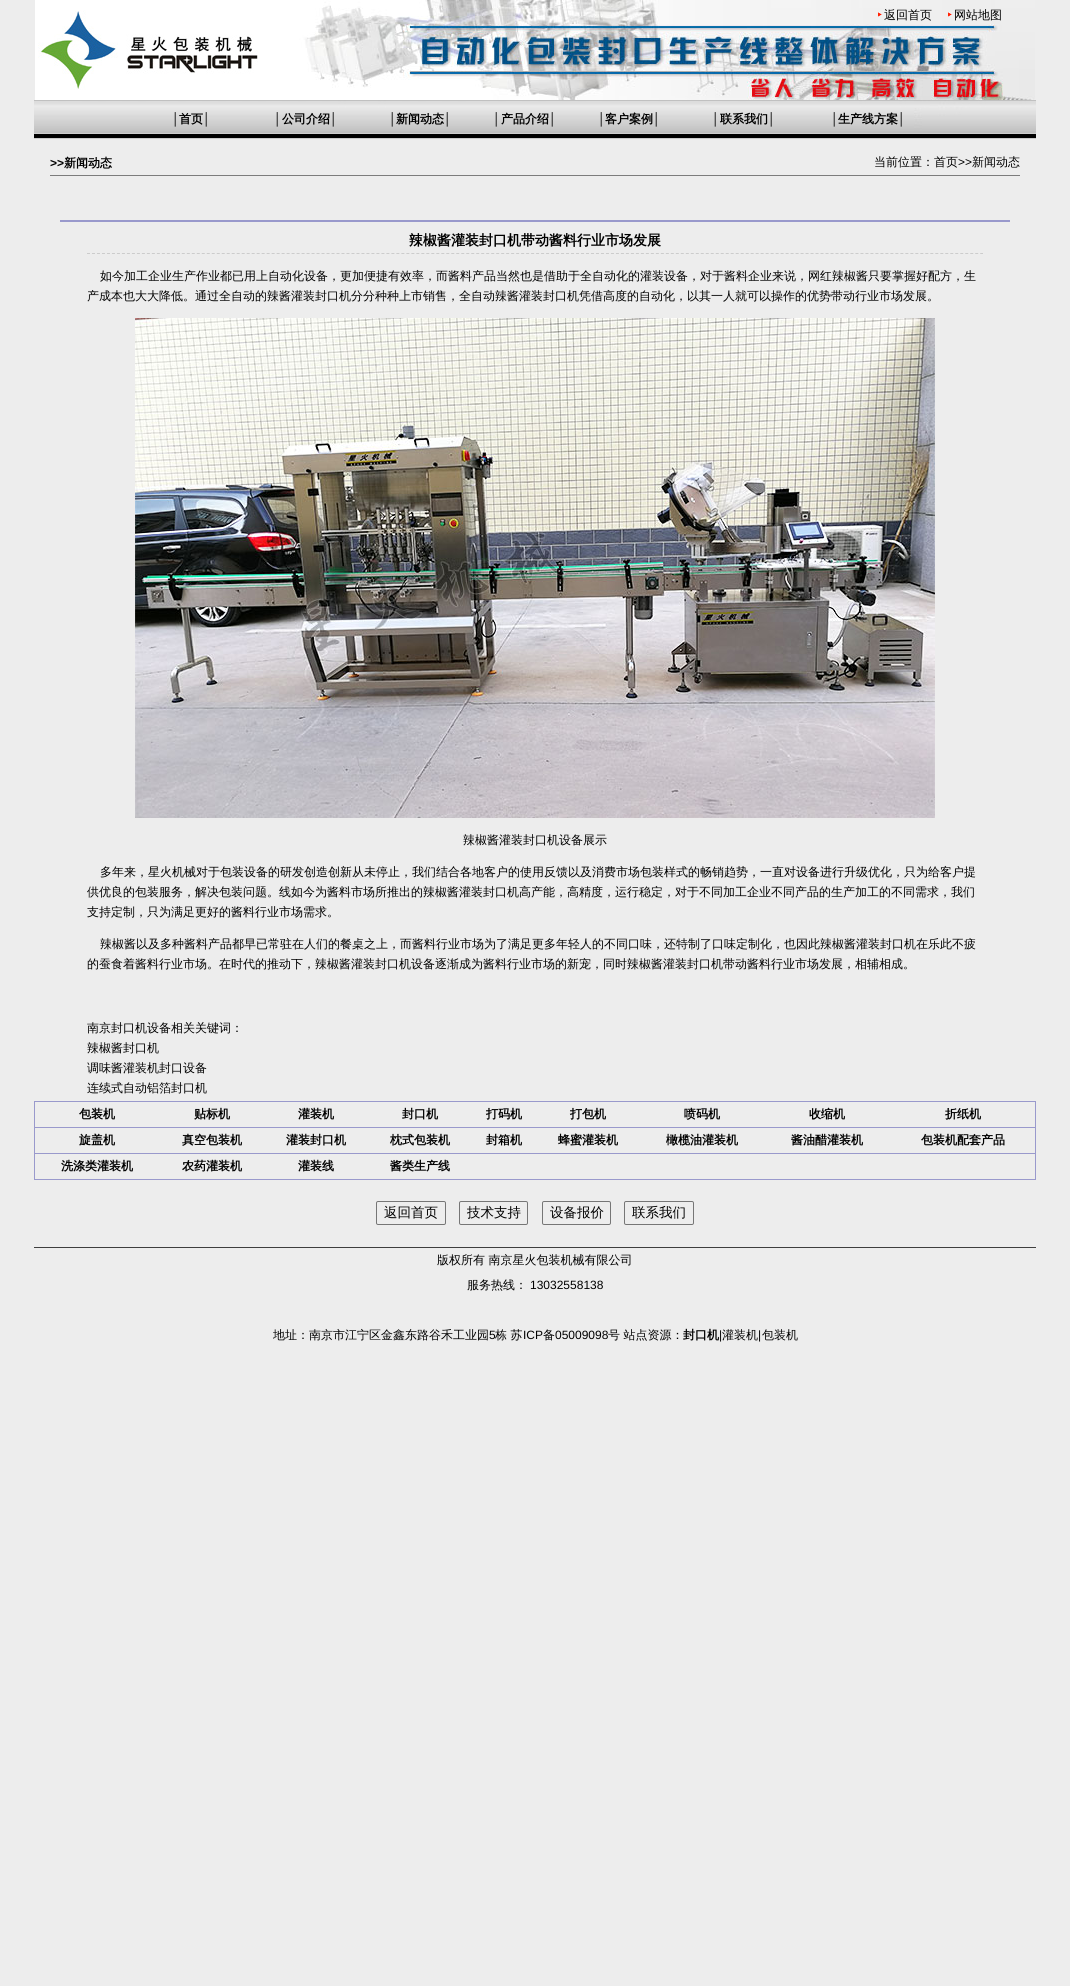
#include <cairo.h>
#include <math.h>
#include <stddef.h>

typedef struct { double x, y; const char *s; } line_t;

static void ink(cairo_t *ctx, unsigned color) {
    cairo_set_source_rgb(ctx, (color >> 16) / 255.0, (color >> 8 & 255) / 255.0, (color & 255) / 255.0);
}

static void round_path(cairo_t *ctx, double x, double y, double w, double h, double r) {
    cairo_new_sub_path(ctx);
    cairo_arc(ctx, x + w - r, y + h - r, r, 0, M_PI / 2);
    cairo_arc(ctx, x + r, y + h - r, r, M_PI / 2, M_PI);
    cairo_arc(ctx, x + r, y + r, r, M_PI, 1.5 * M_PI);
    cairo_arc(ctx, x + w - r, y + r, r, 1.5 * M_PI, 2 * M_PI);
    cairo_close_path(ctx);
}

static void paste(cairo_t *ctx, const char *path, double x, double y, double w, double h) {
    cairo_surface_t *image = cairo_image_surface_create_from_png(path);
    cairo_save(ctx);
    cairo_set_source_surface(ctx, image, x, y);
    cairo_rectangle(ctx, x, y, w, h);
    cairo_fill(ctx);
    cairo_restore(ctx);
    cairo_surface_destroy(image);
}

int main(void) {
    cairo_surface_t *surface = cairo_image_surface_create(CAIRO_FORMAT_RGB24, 1070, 1986);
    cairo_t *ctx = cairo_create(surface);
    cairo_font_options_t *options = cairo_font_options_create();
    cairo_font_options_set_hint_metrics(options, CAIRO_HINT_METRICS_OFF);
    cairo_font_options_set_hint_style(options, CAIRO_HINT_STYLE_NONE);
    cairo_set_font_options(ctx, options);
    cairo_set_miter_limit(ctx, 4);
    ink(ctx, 0xEDEDED);
    cairo_paint(ctx);
    paste(ctx, "media/1.png", 35, 0, 1000, 100);
    paste(ctx, "media/2.png", 38, 10, 220, 80);
    paste(ctx, "media/3.png", 878, 12, 4, 5);
    cairo_select_font_face(ctx, "WenQuanYi Zen Hei Medium", CAIRO_FONT_SLANT_NORMAL, CAIRO_FONT_WEIGHT_NORMAL);
    cairo_set_font_size(ctx, 12);
    ink(ctx, 0x000000);
    cairo_move_to(ctx, 884, 19);
    cairo_show_text(ctx, "返回首页");
    paste(ctx, "media/4.png", 948, 12, 4, 5);
    cairo_move_to(ctx, 954, 19);
    cairo_show_text(ctx, "网站地图");
    paste(ctx, "media/5.png", 34, 100, 1002, 39);
    cairo_select_font_face(ctx, "Liberation Sans", CAIRO_FONT_SLANT_NORMAL, CAIRO_FONT_WEIGHT_BOLD);
    cairo_move_to(ctx, 172, 123);
    cairo_show_text(ctx, "│");
    cairo_select_font_face(ctx, "WenQuanYi Zen Hei", CAIRO_FONT_SLANT_NORMAL, CAIRO_FONT_WEIGHT_BOLD);
    cairo_move_to(ctx, 179, 123);
    cairo_show_text(ctx, "首页");
    cairo_select_font_face(ctx, "Liberation Sans", CAIRO_FONT_SLANT_NORMAL, CAIRO_FONT_WEIGHT_BOLD);
    cairo_move_to(ctx, 203, 123);
    cairo_show_text(ctx, "│");
    cairo_move_to(ctx, 274, 123);
    cairo_show_text(ctx, "│");
    cairo_select_font_face(ctx, "WenQuanYi Zen Hei", CAIRO_FONT_SLANT_NORMAL, CAIRO_FONT_WEIGHT_BOLD);
    cairo_move_to(ctx, 282, 123);
    cairo_show_text(ctx, "公司介绍");
    cairo_select_font_face(ctx, "Liberation Sans", CAIRO_FONT_SLANT_NORMAL, CAIRO_FONT_WEIGHT_BOLD);
    cairo_move_to(ctx, 330, 123);
    cairo_show_text(ctx, "│");
    cairo_move_to(ctx, 389, 123);
    cairo_show_text(ctx, "│");
    cairo_select_font_face(ctx, "WenQuanYi Zen Hei", CAIRO_FONT_SLANT_NORMAL, CAIRO_FONT_WEIGHT_BOLD);
    cairo_move_to(ctx, 396, 123);
    cairo_show_text(ctx, "新闻动态");
    cairo_select_font_face(ctx, "Liberation Sans", CAIRO_FONT_SLANT_NORMAL, CAIRO_FONT_WEIGHT_BOLD);
    cairo_move_to(ctx, 444, 123);
    cairo_show_text(ctx, "│");
    cairo_move_to(ctx, 493, 123);
    cairo_show_text(ctx, "│");
    cairo_select_font_face(ctx, "WenQuanYi Zen Hei", CAIRO_FONT_SLANT_NORMAL, CAIRO_FONT_WEIGHT_BOLD);
    cairo_move_to(ctx, 501, 123);
    cairo_show_text(ctx, "产品介绍");
    cairo_select_font_face(ctx, "Liberation Sans", CAIRO_FONT_SLANT_NORMAL, CAIRO_FONT_WEIGHT_BOLD);
    cairo_move_to(ctx, 549, 123);
    cairo_show_text(ctx, "│");
    cairo_move_to(ctx, 598, 123);
    cairo_show_text(ctx, "│");
    cairo_select_font_face(ctx, "WenQuanYi Zen Hei", CAIRO_FONT_SLANT_NORMAL, CAIRO_FONT_WEIGHT_BOLD);
    cairo_move_to(ctx, 605, 123);
    cairo_show_text(ctx, "客户案例");
    cairo_select_font_face(ctx, "Liberation Sans", CAIRO_FONT_SLANT_NORMAL, CAIRO_FONT_WEIGHT_BOLD);
    cairo_move_to(ctx, 653, 123);
    cairo_show_text(ctx, "│");
    cairo_move_to(ctx, 712, 123);
    cairo_show_text(ctx, "│");
    cairo_select_font_face(ctx, "WenQuanYi Zen Hei", CAIRO_FONT_SLANT_NORMAL, CAIRO_FONT_WEIGHT_BOLD);
    cairo_move_to(ctx, 720, 123);
    cairo_show_text(ctx, "联系我们");
    cairo_select_font_face(ctx, "Liberation Sans", CAIRO_FONT_SLANT_NORMAL, CAIRO_FONT_WEIGHT_BOLD);
    cairo_move_to(ctx, 768, 123);
    cairo_show_text(ctx, "│");
    cairo_move_to(ctx, 831, 123);
    cairo_show_text(ctx, "│");
    cairo_select_font_face(ctx, "WenQuanYi Zen Hei", CAIRO_FONT_SLANT_NORMAL, CAIRO_FONT_WEIGHT_BOLD);
    cairo_move_to(ctx, 838, 123);
    cairo_show_text(ctx, "生产线方案");
    cairo_select_font_face(ctx, "Liberation Sans", CAIRO_FONT_SLANT_NORMAL, CAIRO_FONT_WEIGHT_BOLD);
    cairo_move_to(ctx, 898, 123);
    cairo_show_text(ctx, "│");
    cairo_move_to(ctx, 50, 167);
    cairo_show_text(ctx, ">>");
    cairo_select_font_face(ctx, "WenQuanYi Zen Hei", CAIRO_FONT_SLANT_NORMAL, CAIRO_FONT_WEIGHT_BOLD);
    cairo_move_to(ctx, 64, 167);
    cairo_show_text(ctx, "新闻动态");
    cairo_select_font_face(ctx, "WenQuanYi Zen Hei Medium", CAIRO_FONT_SLANT_NORMAL, CAIRO_FONT_WEIGHT_NORMAL);
    cairo_move_to(ctx, 874, 166);
    cairo_show_text(ctx, "当前位置：首页");
    cairo_select_font_face(ctx, "Liberation Sans", CAIRO_FONT_SLANT_NORMAL, CAIRO_FONT_WEIGHT_NORMAL);
    cairo_move_to(ctx, 958, 166);
    cairo_show_text(ctx, ">>");
    cairo_select_font_face(ctx, "WenQuanYi Zen Hei Medium", CAIRO_FONT_SLANT_NORMAL, CAIRO_FONT_WEIGHT_NORMAL);
    cairo_move_to(ctx, 972, 166);
    cairo_show_text(ctx, "新闻动态");
    ink(ctx, 0x7C7C7C);
    cairo_rectangle(ctx, 50, 175, 970, 1);
    cairo_fill(ctx);
    ink(ctx, 0x9999CC);
    cairo_rectangle(ctx, 60, 220, 950, 2);
    cairo_fill(ctx);
    cairo_new_path(ctx);
    cairo_move_to(ctx, 87, 253.5);
    cairo_line_to(ctx, 983, 253.5);
    ink(ctx, 0xCCCCCC);
    cairo_set_line_width(ctx, 1);
    cairo_set_dash(ctx, (double[]){3, 1.99}, 2, 0);
    cairo_stroke(ctx);
    cairo_select_font_face(ctx, "WenQuanYi Zen Hei", CAIRO_FONT_SLANT_NORMAL, CAIRO_FONT_WEIGHT_BOLD);
    cairo_set_font_size(ctx, 14);
    ink(ctx, 0x000000);
    cairo_move_to(ctx, 409, 245);
    cairo_show_text(ctx, "辣椒酱灌装封口机带动酱料行业市场发展");
    cairo_select_font_face(ctx, "WenQuanYi Zen Hei Medium", CAIRO_FONT_SLANT_NORMAL, CAIRO_FONT_WEIGHT_NORMAL);
    cairo_set_font_size(ctx, 12);
    cairo_move_to(ctx, 100, 280);
    cairo_show_text(ctx, "如今加工企业生产作业都已用上自动化设备，更加便捷有效率，而酱料产品当然也是借助于全自动化的灌装设备，对于酱料企业来说，网红辣椒酱只要掌握好配方，生");
    cairo_move_to(ctx, 87, 300);
    cairo_show_text(ctx, "产成本也大大降低。通过全自动的辣酱灌装封口机分分种种上市销售，全自动辣酱灌装封口机凭借高度的自动化，以其一人就可以操作的优势带动行业市场发展。");
    paste(ctx, "media/6.png", 135, 318, 800, 500);
    {
        static const line_t items[] = {
            {463, 844, "辣椒酱灌装封口机设备展示"},
            {100, 876, "多年来，星火机械对于包装设备的研发创造创新从未停止，我们结合各地客户的使用反馈以及消费市场包装样式的畅销趋势，一直对设备进行升级优化，只为给客户提"},
            {87, 896, "供优良的包装服务，解决包装问题。线如今为酱料市场所推出的辣椒酱灌装封口机高产能，高精度，运行稳定，对于不同加工企业不同产品的生产加工的不同需求，我们"},
            {87, 916, "支持定制，只为满足更好的酱料行业市场需求。"},
            {100, 948, "辣椒酱以及多种酱料产品都早已常驻在人们的餐桌之上，而酱料行业市场为了满足更多年轻人的不同口味，还特制了口味定制化，也因此辣椒酱灌装封口机在乐此不疲"},
            {87, 968, "的蚕食着酱料行业市场。在时代的推动下，辣椒酱灌装封口机设备逐渐成为酱料行业市场的新宠，同时辣椒酱灌装封口机带动酱料行业市场发展，相辅相成。"},
            {87, 1032, "南京封口机设备相关关键词："},
            {87, 1052, "辣椒酱封口机"},
            {87, 1072, "调味酱灌装机封口设备"},
            {87, 1092, "连续式自动铝箔封口机"},
        };
        for (size_t i = 0; i < sizeof items / sizeof *items; i++) {
            cairo_move_to(ctx, items[i].x, items[i].y);
            cairo_show_text(ctx, items[i].s);
        }
    }
    ink(ctx, 0x9999CC);
    cairo_rectangle(ctx, 34, 1101, 1002, 79);
    cairo_fill(ctx);
    ink(ctx, 0xEDEDED);
    cairo_rectangle(ctx, 35, 1102, 1000, 25);
    cairo_fill(ctx);
    cairo_select_font_face(ctx, "WenQuanYi Zen Hei", CAIRO_FONT_SLANT_NORMAL, CAIRO_FONT_WEIGHT_BOLD);
    ink(ctx, 0x000000);
    {
        static const line_t items[] = {
            {79, 1118, "包装机"},
            {194, 1118, "贴标机"},
            {298, 1118, "灌装机"},
            {402, 1118, "封口机"},
            {486, 1118, "打码机"},
            {570, 1118, "打包机"},
            {684, 1118, "喷码机"},
            {809, 1118, "收缩机"},
            {945, 1118, "折纸机"},
        };
        for (size_t i = 0; i < sizeof items / sizeof *items; i++) {
            cairo_move_to(ctx, items[i].x, items[i].y);
            cairo_show_text(ctx, items[i].s);
        }
    }
    ink(ctx, 0xEDEDED);
    cairo_rectangle(ctx, 35, 1128, 1000, 25);
    cairo_fill(ctx);
    ink(ctx, 0x000000);
    {
        static const line_t items[] = {
            {79, 1144, "旋盖机"},
            {182, 1144, "真空包装机"},
            {286, 1144, "灌装封口机"},
            {390, 1144, "枕式包装机"},
            {486, 1144, "封箱机"},
            {558, 1144, "蜂蜜灌装机"},
            {666, 1144, "橄榄油灌装机"},
            {791, 1144, "酱油醋灌装机"},
            {921, 1144, "包装机配套产品"},
        };
        for (size_t i = 0; i < sizeof items / sizeof *items; i++) {
            cairo_move_to(ctx, items[i].x, items[i].y);
            cairo_show_text(ctx, items[i].s);
        }
    }
    ink(ctx, 0xEDEDED);
    cairo_rectangle(ctx, 35, 1154, 1000, 25);
    cairo_fill(ctx);
    ink(ctx, 0x000000);
    {
        static const line_t items[] = {
            {61, 1170, "洗涤类灌装机"},
            {182, 1170, "农药灌装机"},
            {298, 1170, "灌装线"},
            {390, 1170, "酱类生产线"},
        };
        for (size_t i = 0; i < sizeof items / sizeof *items; i++) {
            cairo_move_to(ctx, items[i].x, items[i].y);
            cairo_show_text(ctx, items[i].s);
        }
    }
    round_path(ctx, 376.5, 1201.5, 69, 23, 1.5);
    ink(ctx, 0x767676);
    cairo_set_dash(ctx, NULL, 0, 0);
    cairo_stroke(ctx);
    cairo_select_font_face(ctx, "WenQuanYi Zen Hei Medium", CAIRO_FONT_SLANT_NORMAL, CAIRO_FONT_WEIGHT_NORMAL);
    cairo_set_font_size(ctx, 13.5);
    ink(ctx, 0x000000);
    cairo_move_to(ctx, 384, 1217);
    cairo_show_text(ctx, "返回首页");
    round_path(ctx, 459.5, 1201.5, 68, 23, 1.5);
    ink(ctx, 0x767676);
    cairo_stroke(ctx);
    ink(ctx, 0x000000);
    cairo_move_to(ctx, 467, 1217);
    cairo_show_text(ctx, "技术支持");
    round_path(ctx, 542.5, 1201.5, 68, 23, 1.5);
    ink(ctx, 0x767676);
    cairo_stroke(ctx);
    ink(ctx, 0x000000);
    cairo_move_to(ctx, 550, 1217);
    cairo_show_text(ctx, "设备报价");
    round_path(ctx, 624.5, 1201.5, 69, 23, 1.5);
    ink(ctx, 0x767676);
    cairo_stroke(ctx);
    ink(ctx, 0x000000);
    cairo_move_to(ctx, 632, 1217);
    cairo_show_text(ctx, "联系我们");
    ink(ctx, 0x3F3F3F);
    cairo_rectangle(ctx, 34, 1247, 1002, 1);
    cairo_fill(ctx);
    cairo_set_font_size(ctx, 12);
    ink(ctx, 0x000000);
    cairo_move_to(ctx, 437, 1264);
    cairo_show_text(ctx, "版权所有 南京星火包装机械有限公司");
    cairo_move_to(ctx, 467, 1289);
    cairo_show_text(ctx, "服务热线：");
    cairo_select_font_face(ctx, "Liberation Sans", CAIRO_FONT_SLANT_NORMAL, CAIRO_FONT_WEIGHT_NORMAL);
    cairo_move_to(ctx, 530, 1289);
    cairo_show_text(ctx, "13032558138");
    cairo_select_font_face(ctx, "WenQuanYi Zen Hei Medium", CAIRO_FONT_SLANT_NORMAL, CAIRO_FONT_WEIGHT_NORMAL);
    cairo_move_to(ctx, 273, 1339);
    cairo_show_text(ctx, "地址：南京市江宁区金鑫东路谷禾工业园");
    cairo_select_font_face(ctx, "Liberation Sans", CAIRO_FONT_SLANT_NORMAL, CAIRO_FONT_WEIGHT_NORMAL);
    cairo_move_to(ctx, 489, 1339);
    cairo_show_text(ctx, "5");
    cairo_select_font_face(ctx, "WenQuanYi Zen Hei Medium", CAIRO_FONT_SLANT_NORMAL, CAIRO_FONT_WEIGHT_NORMAL);
    cairo_move_to(ctx, 495, 1339);
    cairo_show_text(ctx, "栋 苏");
    cairo_select_font_face(ctx, "Liberation Sans", CAIRO_FONT_SLANT_NORMAL, CAIRO_FONT_WEIGHT_NORMAL);
    cairo_move_to(ctx, 523, 1339);
    cairo_show_text(ctx, "ICP");
    cairo_select_font_face(ctx, "WenQuanYi Zen Hei Medium", CAIRO_FONT_SLANT_NORMAL, CAIRO_FONT_WEIGHT_NORMAL);
    cairo_move_to(ctx, 543, 1339);
    cairo_show_text(ctx, "备");
    cairo_select_font_face(ctx, "Liberation Sans", CAIRO_FONT_SLANT_NORMAL, CAIRO_FONT_WEIGHT_NORMAL);
    cairo_move_to(ctx, 555, 1339);
    cairo_show_text(ctx, "05009098");
    cairo_select_font_face(ctx, "WenQuanYi Zen Hei Medium", CAIRO_FONT_SLANT_NORMAL, CAIRO_FONT_WEIGHT_NORMAL);
    cairo_move_to(ctx, 608, 1339);
    cairo_show_text(ctx, "号 站点资源：");
    cairo_select_font_face(ctx, "WenQuanYi Zen Hei", CAIRO_FONT_SLANT_NORMAL, CAIRO_FONT_WEIGHT_BOLD);
    cairo_move_to(ctx, 683, 1339);
    cairo_show_text(ctx, "封口机");
    cairo_select_font_face(ctx, "Liberation Sans", CAIRO_FONT_SLANT_NORMAL, CAIRO_FONT_WEIGHT_NORMAL);
    cairo_move_to(ctx, 719, 1339);
    cairo_show_text(ctx, "|");
    cairo_select_font_face(ctx, "WenQuanYi Zen Hei Medium", CAIRO_FONT_SLANT_NORMAL, CAIRO_FONT_WEIGHT_NORMAL);
    cairo_move_to(ctx, 722, 1339);
    cairo_show_text(ctx, "灌装机");
    cairo_select_font_face(ctx, "Liberation Sans", CAIRO_FONT_SLANT_NORMAL, CAIRO_FONT_WEIGHT_NORMAL);
    cairo_move_to(ctx, 758, 1339);
    cairo_show_text(ctx, "|");
    cairo_select_font_face(ctx, "WenQuanYi Zen Hei Medium", CAIRO_FONT_SLANT_NORMAL, CAIRO_FONT_WEIGHT_NORMAL);
    cairo_move_to(ctx, 762, 1339);
    cairo_show_text(ctx, "包装机");
    cairo_surface_write_to_png(surface, "image.png");
    cairo_font_options_destroy(options);
    cairo_destroy(ctx);
    cairo_surface_destroy(surface);
    return 0;
}
